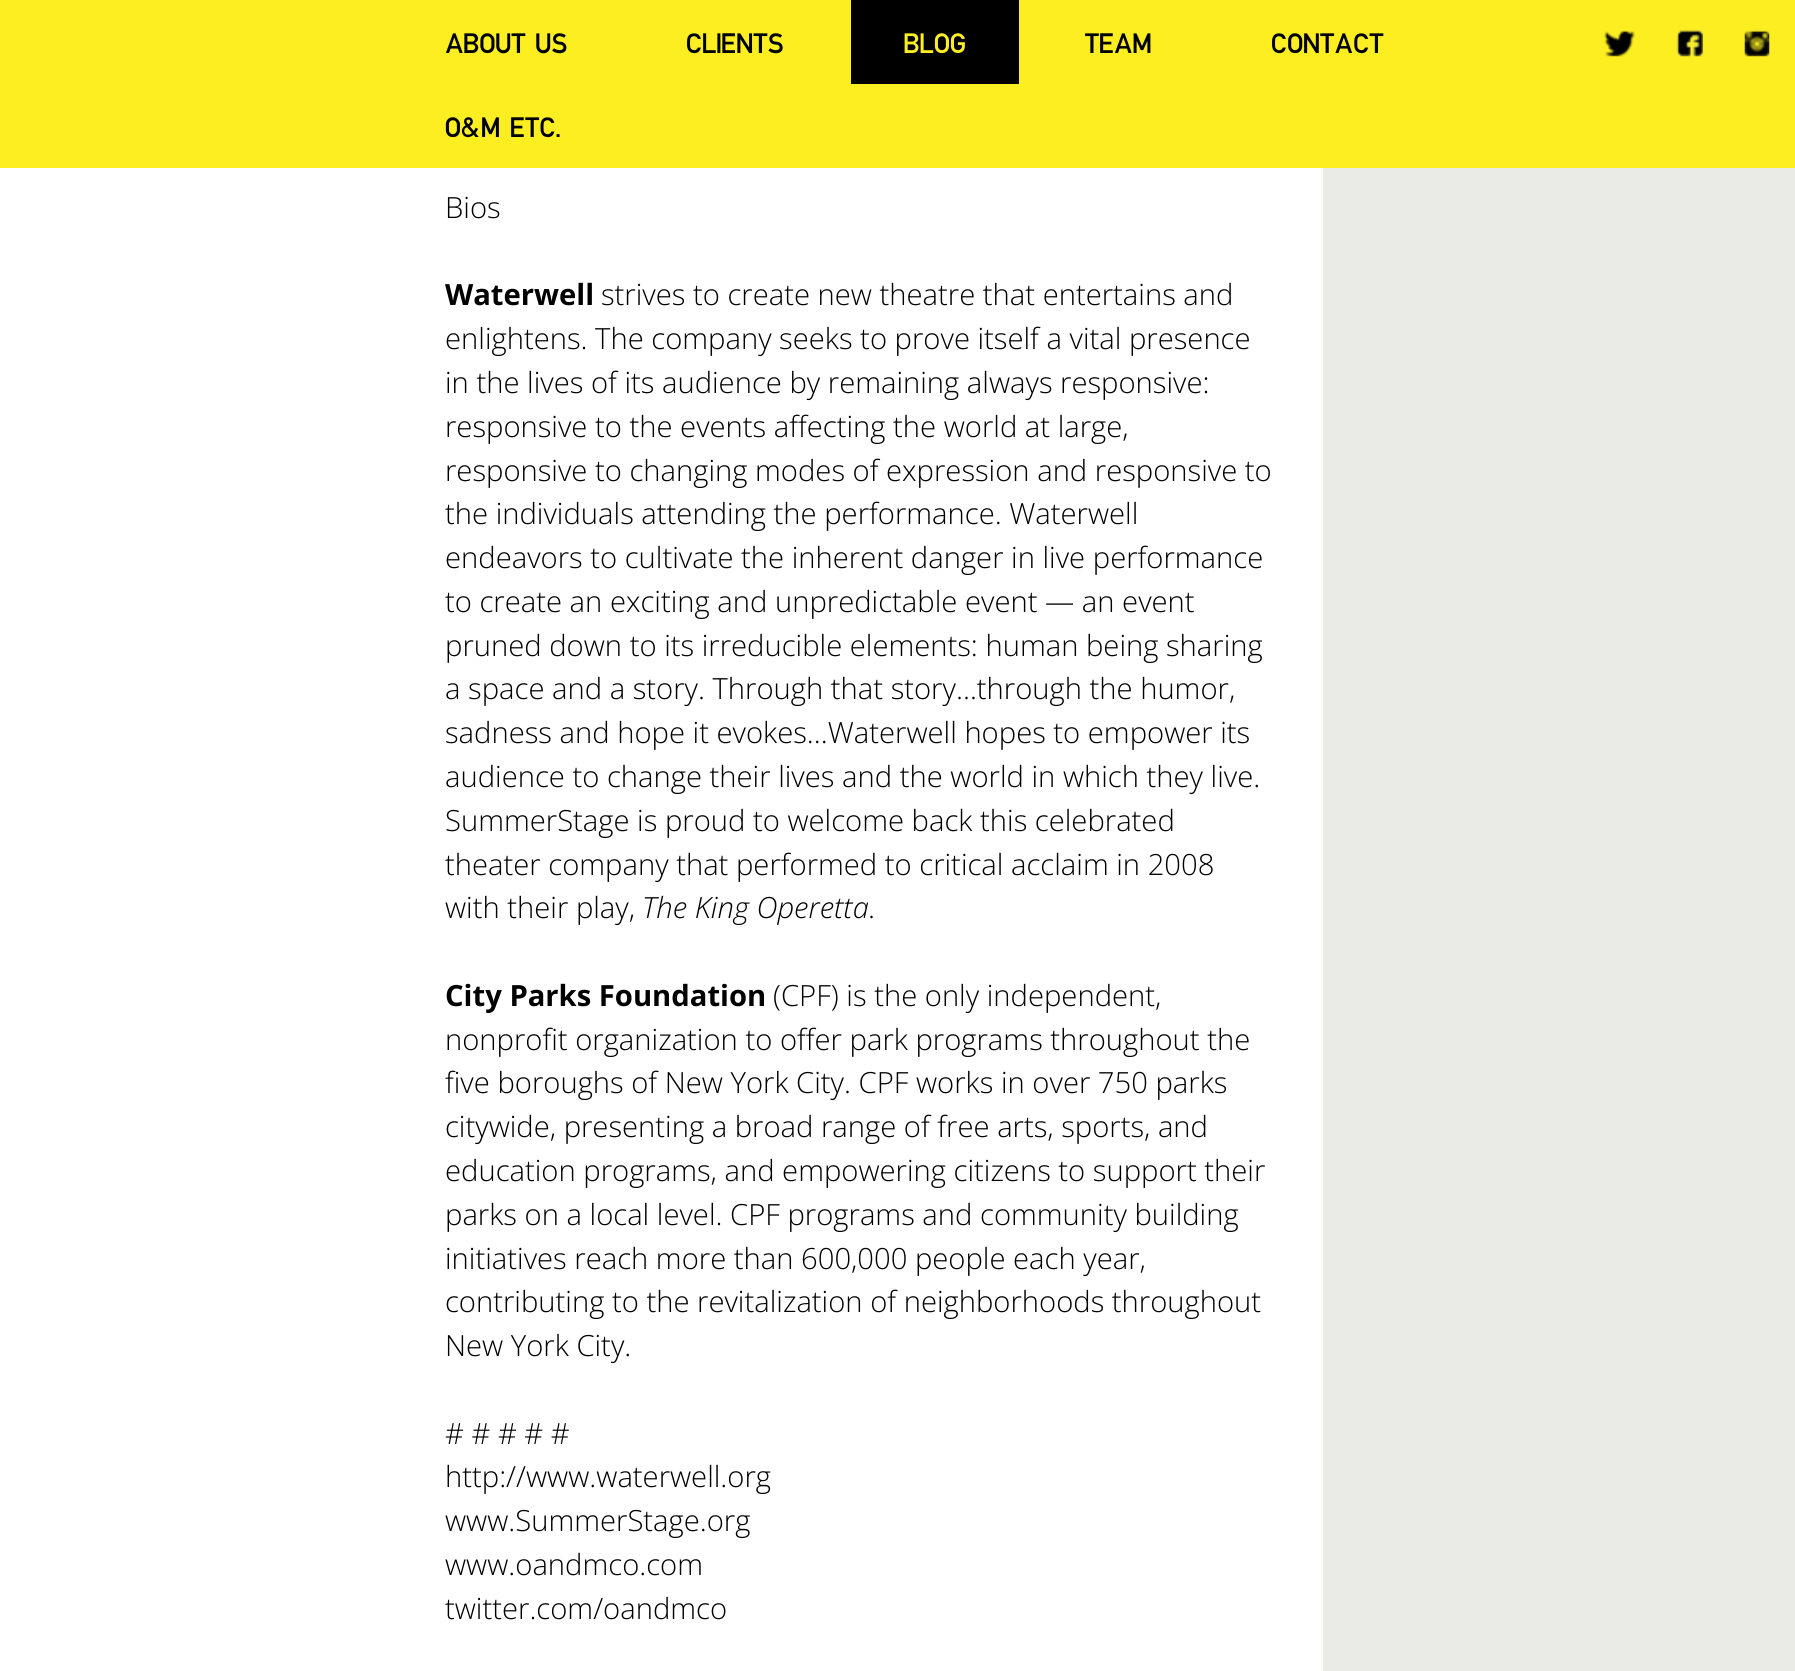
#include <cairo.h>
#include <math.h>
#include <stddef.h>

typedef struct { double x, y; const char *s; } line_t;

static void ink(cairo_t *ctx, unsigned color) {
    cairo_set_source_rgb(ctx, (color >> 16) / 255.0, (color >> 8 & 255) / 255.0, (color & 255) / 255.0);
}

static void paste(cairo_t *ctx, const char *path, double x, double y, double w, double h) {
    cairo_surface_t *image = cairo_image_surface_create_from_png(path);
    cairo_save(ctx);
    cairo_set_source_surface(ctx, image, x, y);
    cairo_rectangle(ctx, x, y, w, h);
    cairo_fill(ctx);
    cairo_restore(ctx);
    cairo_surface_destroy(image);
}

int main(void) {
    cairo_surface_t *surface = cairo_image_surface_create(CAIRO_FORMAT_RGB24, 1795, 1671);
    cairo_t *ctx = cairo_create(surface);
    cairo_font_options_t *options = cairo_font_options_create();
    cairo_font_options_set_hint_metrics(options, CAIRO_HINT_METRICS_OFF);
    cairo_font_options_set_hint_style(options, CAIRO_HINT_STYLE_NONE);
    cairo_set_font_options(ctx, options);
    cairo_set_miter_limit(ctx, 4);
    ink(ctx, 0xFFFFFF);
    cairo_paint(ctx);
    ink(ctx, 0xFCEE21);
    cairo_rectangle(ctx, 0, 0, 1795, 168);
    cairo_fill(ctx);
    cairo_select_font_face(ctx, "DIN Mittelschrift", CAIRO_FONT_SLANT_NORMAL, CAIRO_FONT_WEIGHT_NORMAL);
    cairo_set_font_size(ctx, 35);
    ink(ctx, 0x000000);
    cairo_move_to(ctx, 445, 53);
    cairo_show_text(ctx, "ABOUT US");
    cairo_move_to(ctx, 686, 53);
    cairo_show_text(ctx, "CLIENTS");
    cairo_rectangle(ctx, 851, 0, 168, 84);
    cairo_fill(ctx);
    ink(ctx, 0xFCEE21);
    cairo_move_to(ctx, 904, 53);
    cairo_show_text(ctx, "BLOG");
    ink(ctx, 0x000000);
    {
        static const line_t items[] = {
            {1085, 53, "TEAM"},
            {1271, 53, "CONTACT"},
            {445, 137, "O&M ETC."},
        };
        for (size_t i = 0; i < sizeof items / sizeof *items; i++) {
            cairo_move_to(ctx, items[i].x, items[i].y);
            cairo_show_text(ctx, items[i].s);
        }
    }
    paste(ctx, "media/1.png", 1604, 30, 31, 27);
    paste(ctx, "media/2.png", 1676, 29, 27, 28);
    paste(ctx, "media/3.png", 1744, 30, 26, 27);
    cairo_select_font_face(ctx, "Open Sans Light", CAIRO_FONT_SLANT_NORMAL, CAIRO_FONT_WEIGHT_NORMAL);
    cairo_set_font_size(ctx, 29.2);
    cairo_move_to(ctx, 445, 218);
    cairo_show_text(ctx, "Bios");
    cairo_select_font_face(ctx, "Open Sans", CAIRO_FONT_SLANT_NORMAL, CAIRO_FONT_WEIGHT_BOLD);
    cairo_move_to(ctx, 445, 305);
    cairo_show_text(ctx, "Waterwell");
    cairo_select_font_face(ctx, "Open Sans Light", CAIRO_FONT_SLANT_NORMAL, CAIRO_FONT_WEIGHT_NORMAL);
    {
        static const line_t items[] = {
            {601, 305, "strives to create new theatre that entertains and"},
            {445, 349, "enlightens. The company seeks to prove itself a vital presence"},
            {445, 393, "in the lives of its audience by remaining always responsive:"},
            {445, 437, "responsive to the events affecting the world at large,"},
            {445, 481, "responsive to changing modes of expression and responsive to"},
            {445, 524, "the individuals attending the performance. Waterwell"},
            {445, 568, "endeavors to cultivate the inherent danger in live performance"},
            {445, 612, "to create an exciting and unpredictable event — an event"},
            {445, 656, "pruned down to its irreducible elements: human being sharing"},
            {445, 699, "a space and a story. Through that story…through the humor,"},
            {445, 743, "sadness and hope it evokes…Waterwell hopes to empower its"},
            {445, 787, "audience to change their lives and the world in which they live."},
            {445, 831, "SummerStage is proud to welcome back this celebrated"},
            {445, 875, "theater company that performed to critical acclaim in 2008"},
            {445, 918, "with their play,"},
        };
        for (size_t i = 0; i < sizeof items / sizeof *items; i++) {
            cairo_move_to(ctx, items[i].x, items[i].y);
            cairo_show_text(ctx, items[i].s);
        }
    }
    cairo_select_font_face(ctx, "Open Sans Light", CAIRO_FONT_SLANT_ITALIC, CAIRO_FONT_WEIGHT_NORMAL);
    cairo_move_to(ctx, 642, 918);
    cairo_show_text(ctx, "The King Operetta");
    cairo_select_font_face(ctx, "Open Sans Light", CAIRO_FONT_SLANT_NORMAL, CAIRO_FONT_WEIGHT_NORMAL);
    cairo_move_to(ctx, 868, 918);
    cairo_show_text(ctx, ".");
    cairo_select_font_face(ctx, "Open Sans", CAIRO_FONT_SLANT_NORMAL, CAIRO_FONT_WEIGHT_BOLD);
    cairo_move_to(ctx, 445, 1006);
    cairo_show_text(ctx, "City Parks Foundation");
    cairo_select_font_face(ctx, "Open Sans Light", CAIRO_FONT_SLANT_NORMAL, CAIRO_FONT_WEIGHT_NORMAL);
    {
        static const line_t items[] = {
            {773, 1006, "(CPF) is the only independent,"},
            {445, 1050, "nonprofit organization to offer park programs throughout the"},
            {445, 1093, "five boroughs of New York City. CPF works in over 750 parks"},
            {445, 1137, "citywide, presenting a broad range of free arts, sports, and"},
            {445, 1181, "education programs, and empowering citizens to support their"},
            {445, 1225, "parks on a local level. CPF programs and community building"},
            {445, 1269, "initiatives reach more than 600,000 people each year,"},
            {445, 1312, "contributing to the revitalization of neighborhoods throughout"},
            {445, 1356, "New York City."},
            {445, 1444, "# # # # #"},
            {445, 1487, "http://www.waterwell.org"},
            {445, 1531, "www.SummerStage.org"},
            {445, 1575, "www.oandmco.com"},
            {445, 1619, "twitter.com/oandmco"},
        };
        for (size_t i = 0; i < sizeof items / sizeof *items; i++) {
            cairo_move_to(ctx, items[i].x, items[i].y);
            cairo_show_text(ctx, items[i].s);
        }
    }
    ink(ctx, 0xEAEAE6);
    cairo_rectangle(ctx, 1323, 168, 472, 1503);
    cairo_fill(ctx);
    cairo_surface_write_to_png(surface, "image.png");
    cairo_font_options_destroy(options);
    cairo_destroy(ctx);
    cairo_surface_destroy(surface);
    return 0;
}
